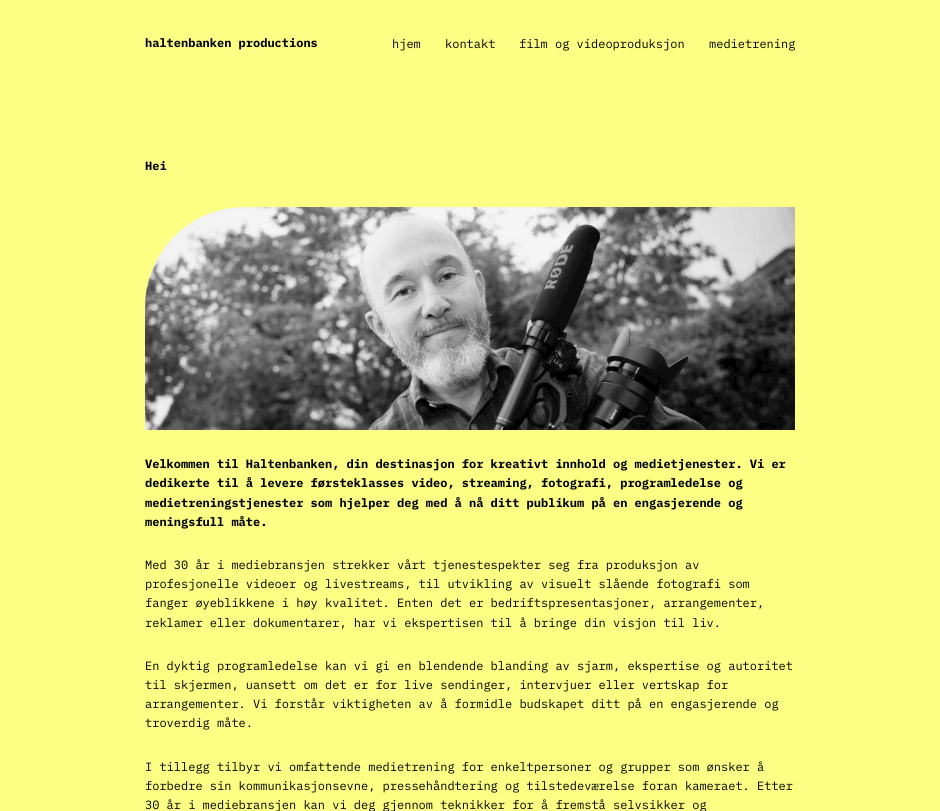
#include <cairo.h>
#include <math.h>
#include <stddef.h>

typedef struct { double x, y; const char *s; } line_t;

static void ink(cairo_t *ctx, unsigned color) {
    cairo_set_source_rgb(ctx, (color >> 16) / 255.0, (color >> 8 & 255) / 255.0, (color & 255) / 255.0);
}

static void paste(cairo_t *ctx, const char *path, double x, double y, double w, double h) {
    cairo_surface_t *image = cairo_image_surface_create_from_png(path);
    cairo_save(ctx);
    cairo_set_source_surface(ctx, image, x, y);
    cairo_rectangle(ctx, x, y, w, h);
    cairo_fill(ctx);
    cairo_restore(ctx);
    cairo_surface_destroy(image);
}

int main(void) {
    cairo_surface_t *surface = cairo_image_surface_create(CAIRO_FORMAT_RGB24, 940, 811);
    cairo_t *ctx = cairo_create(surface);
    cairo_font_options_t *options = cairo_font_options_create();
    cairo_font_options_set_hint_metrics(options, CAIRO_HINT_METRICS_OFF);
    cairo_font_options_set_hint_style(options, CAIRO_HINT_STYLE_NONE);
    cairo_set_font_options(ctx, options);
    cairo_set_miter_limit(ctx, 4);
    ink(ctx, 0xFDFF85);
    cairo_paint(ctx);
    cairo_select_font_face(ctx, "IBM Plex Mono", CAIRO_FONT_SLANT_NORMAL, CAIRO_FONT_WEIGHT_BOLD);
    cairo_set_font_size(ctx, 12);
    ink(ctx, 0x000000);
    cairo_move_to(ctx, 145, 47);
    cairo_show_text(ctx, "haltenbanken productions");
    cairo_select_font_face(ctx, "IBM Plex Mono", CAIRO_FONT_SLANT_NORMAL, CAIRO_FONT_WEIGHT_NORMAL);
    {
        static const line_t items[] = {
            {392, 48, "hjem"},
            {445, 48, "kontakt"},
            {519, 48, "film og videoproduksjon"},
            {709, 48, "medietrening"},
        };
        for (size_t i = 0; i < sizeof items / sizeof *items; i++) {
            cairo_move_to(ctx, items[i].x, items[i].y);
            cairo_show_text(ctx, items[i].s);
        }
    }
    cairo_select_font_face(ctx, "IBM Plex Mono", CAIRO_FONT_SLANT_NORMAL, CAIRO_FONT_WEIGHT_BOLD);
    cairo_move_to(ctx, 145, 170);
    cairo_show_text(ctx, "Hei");
    paste(ctx, "media/1.png", 145, 207, 650, 223);
    {
        static const line_t items[] = {
            {145, 468, "Velkommen til Haltenbanken, din destinasjon for kreativt innhold og medietjenester. Vi er"},
            {145, 487, "dedikerte til å levere førsteklasses video, streaming, fotografi, programledelse og"},
            {145, 507, "medietreningstjenester som hjelper deg med å nå ditt publikum på en engasjerende og"},
            {145, 526, "meningsfull måte."},
        };
        for (size_t i = 0; i < sizeof items / sizeof *items; i++) {
            cairo_move_to(ctx, items[i].x, items[i].y);
            cairo_show_text(ctx, items[i].s);
        }
    }
    cairo_select_font_face(ctx, "IBM Plex Mono", CAIRO_FONT_SLANT_NORMAL, CAIRO_FONT_WEIGHT_NORMAL);
    {
        static const line_t items[] = {
            {145, 569, "Med 30 år i mediebransjen strekker vårt tjenestespekter seg fra produksjon av"},
            {145, 588, "profesjonelle videoer og livestreams, til utvikling av visuelt slående fotografi som"},
            {145, 607, "fanger øyeblikkene i høy kvalitet. Enten det er bedriftspresentasjoner, arrangementer,"},
            {145, 627, "reklamer eller dokumentarer, har vi ekspertisen til å bringe din visjon til liv."},
            {145, 670, "En dyktig programledelse kan vi gi en blendende blanding av sjarm, ekspertise og autoritet"},
            {145, 689, "til skjermen, uansett om det er for live sendinger, intervjuer eller vertskap for"},
            {145, 708, "arrangementer. Vi forstår viktigheten av å formidle budskapet ditt på en engasjerende og"},
            {145, 727, "troverdig måte."},
            {145, 771, "I tillegg tilbyr vi omfattende medietrening for enkeltpersoner og grupper som ønsker å"},
            {145, 790, "forbedre sin kommunikasjonsevne, pressehåndtering og tilstedeværelse foran kameraet. Etter"},
            {145, 809, "30 år i mediebransjen kan vi deg gjennom teknikker for å fremstå selvsikker og"},
        };
        for (size_t i = 0; i < sizeof items / sizeof *items; i++) {
            cairo_move_to(ctx, items[i].x, items[i].y);
            cairo_show_text(ctx, items[i].s);
        }
    }
    cairo_surface_write_to_png(surface, "image.png");
    cairo_font_options_destroy(options);
    cairo_destroy(ctx);
    cairo_surface_destroy(surface);
    return 0;
}
